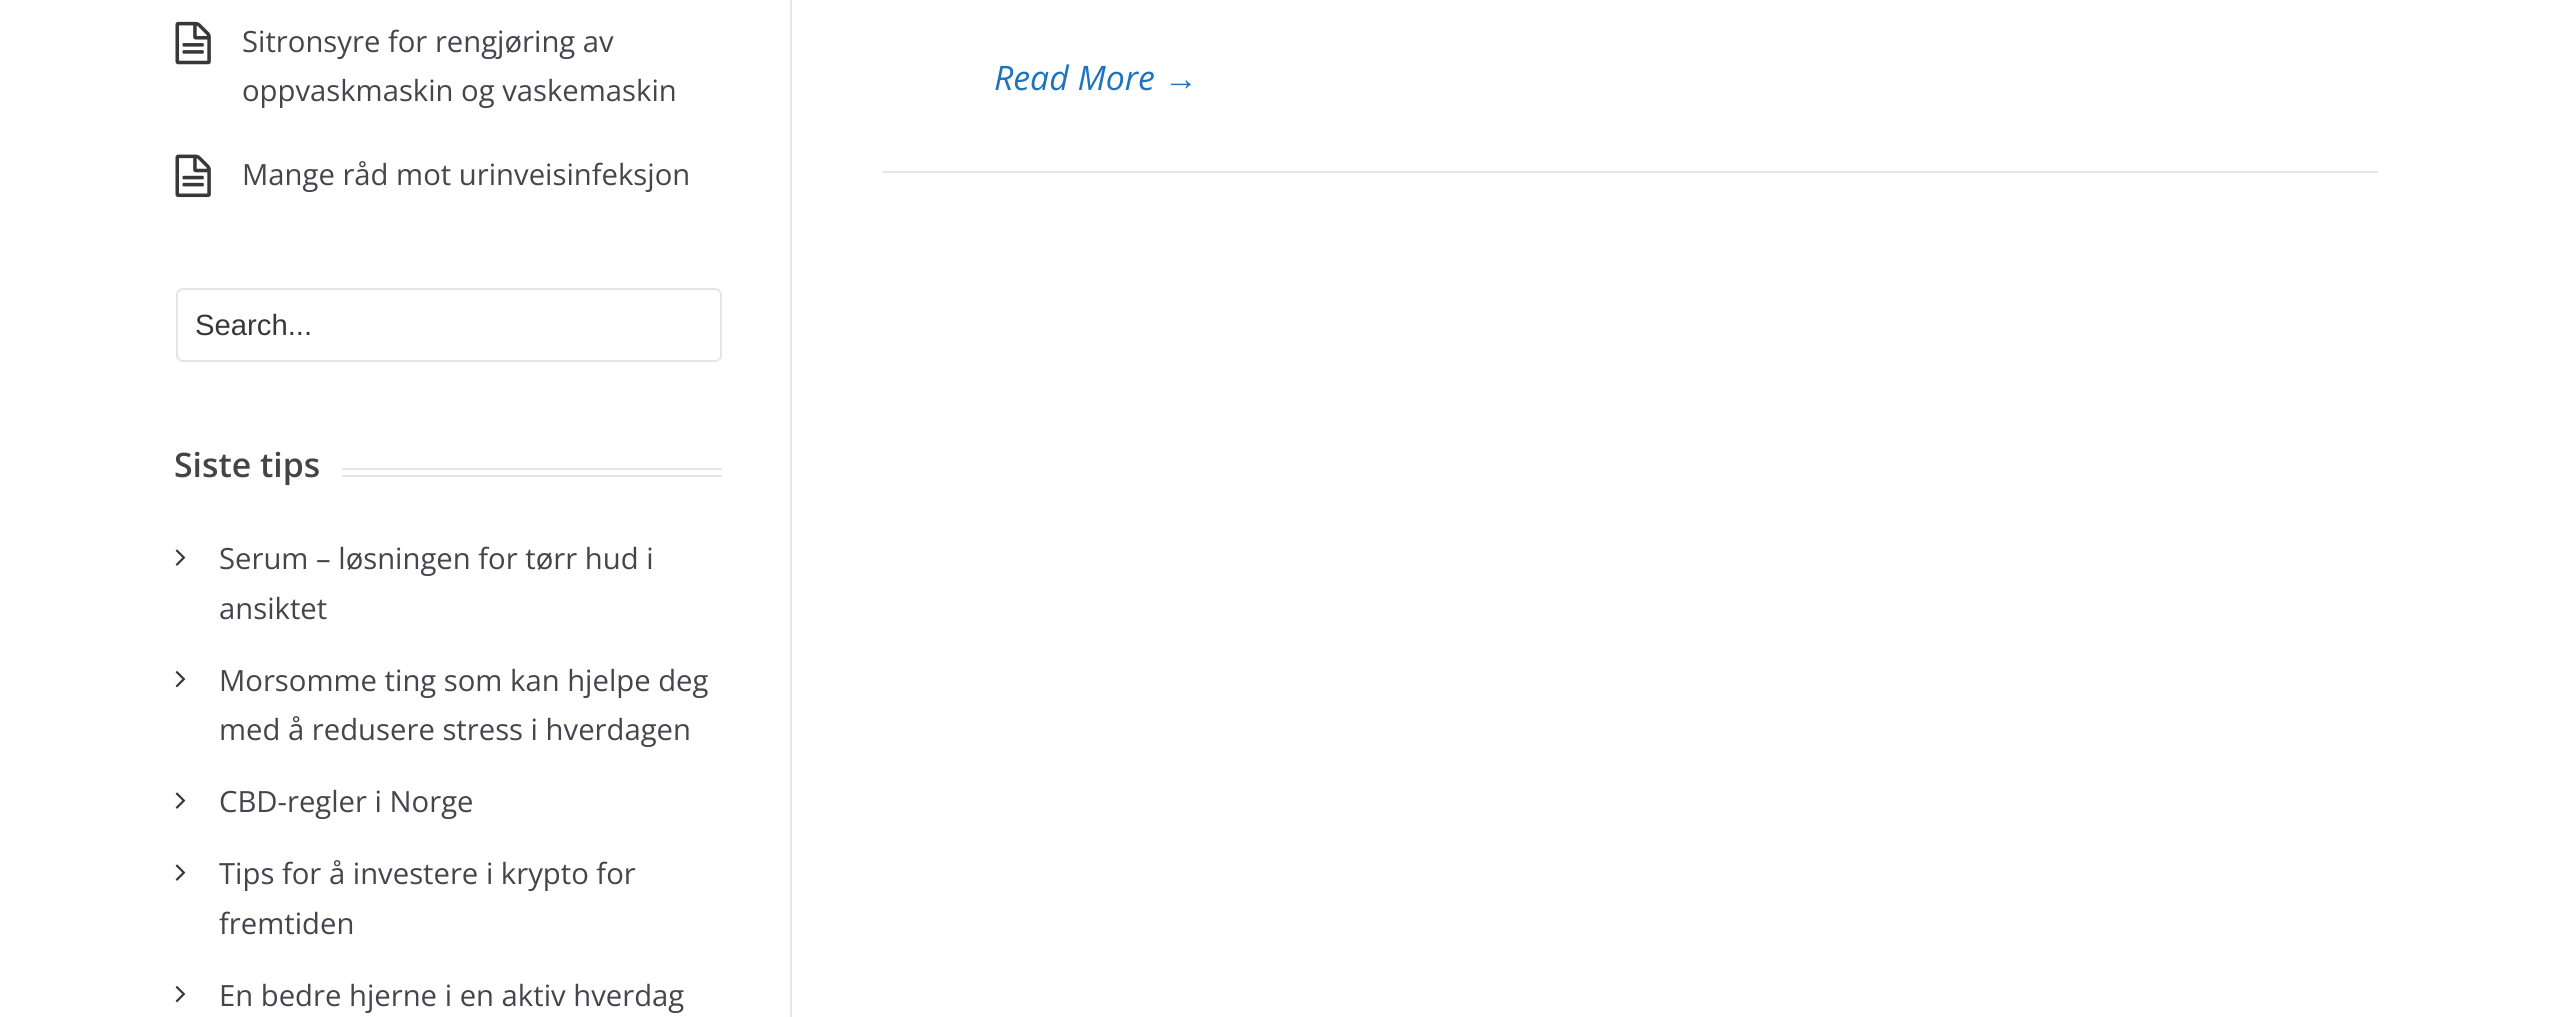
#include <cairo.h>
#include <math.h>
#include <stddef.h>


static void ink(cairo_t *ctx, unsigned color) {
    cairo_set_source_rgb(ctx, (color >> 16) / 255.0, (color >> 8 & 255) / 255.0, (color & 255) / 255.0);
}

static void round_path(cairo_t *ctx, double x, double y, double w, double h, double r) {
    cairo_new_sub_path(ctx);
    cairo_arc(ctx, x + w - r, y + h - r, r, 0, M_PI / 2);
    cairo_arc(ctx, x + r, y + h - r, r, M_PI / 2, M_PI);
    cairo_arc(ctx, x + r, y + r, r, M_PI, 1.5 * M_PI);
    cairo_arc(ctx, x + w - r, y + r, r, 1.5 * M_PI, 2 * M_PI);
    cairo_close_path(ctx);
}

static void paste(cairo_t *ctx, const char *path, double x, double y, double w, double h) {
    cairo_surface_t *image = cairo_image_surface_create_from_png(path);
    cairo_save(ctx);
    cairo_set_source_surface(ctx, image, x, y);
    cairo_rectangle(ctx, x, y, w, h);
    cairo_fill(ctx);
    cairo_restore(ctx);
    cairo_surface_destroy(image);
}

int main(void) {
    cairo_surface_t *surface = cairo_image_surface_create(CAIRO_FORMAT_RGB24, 2549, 1017);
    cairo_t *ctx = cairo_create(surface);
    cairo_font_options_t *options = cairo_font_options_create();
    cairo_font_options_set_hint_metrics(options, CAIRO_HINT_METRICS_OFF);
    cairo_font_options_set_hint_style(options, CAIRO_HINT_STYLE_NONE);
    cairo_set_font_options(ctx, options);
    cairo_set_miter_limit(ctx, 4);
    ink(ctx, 0xFFFFFF);
    cairo_paint(ctx);
    ink(ctx, 0xE6E6E6);
    cairo_rectangle(ctx, 790, 0, 2, 1017);
    cairo_fill(ctx);
    paste(ctx, "media/1.png", 175, 21, 36, 44);
    cairo_select_font_face(ctx, "Open Sans", CAIRO_FONT_SLANT_NORMAL, CAIRO_FONT_WEIGHT_NORMAL);
    cairo_set_font_size(ctx, 29.25);
    ink(ctx, 0x45454C);
    cairo_move_to(ctx, 242, 52);
    cairo_show_text(ctx, "Sitronsyre for rengjøring av");
    cairo_move_to(ctx, 242, 101);
    cairo_show_text(ctx, "oppvaskmaskin og vaskemaskin");
    paste(ctx, "media/2.png", 175, 154, 36, 44);
    cairo_move_to(ctx, 242, 185);
    cairo_show_text(ctx, "Mange råd mot urinveisinfeksjon");
    round_path(ctx, 177, 289, 544, 72, 6);
    ink(ctx, 0xE5E5E5);
    cairo_stroke(ctx);
    cairo_select_font_face(ctx, "Liberation Sans", CAIRO_FONT_SLANT_NORMAL, CAIRO_FONT_WEIGHT_NORMAL);
    ink(ctx, 0x383838);
    cairo_move_to(ctx, 195, 335);
    cairo_show_text(ctx, "Search...");
    ink(ctx, 0xE5E5E5);
    cairo_rectangle(ctx, 342, 468, 380, 2);
    cairo_fill(ctx);
    cairo_rectangle(ctx, 342, 475, 380, 2);
    cairo_fill(ctx);
    cairo_select_font_face(ctx, "Open Sans SemiBold", CAIRO_FONT_SLANT_NORMAL, CAIRO_FONT_WEIGHT_NORMAL);
    cairo_set_font_size(ctx, 33.75);
    ink(ctx, 0x444444);
    cairo_move_to(ctx, 174, 477);
    cairo_show_text(ctx, "Siste tips");
    paste(ctx, "media/3.png", 175, 549, 11, 17);
    cairo_select_font_face(ctx, "Open Sans", CAIRO_FONT_SLANT_NORMAL, CAIRO_FONT_WEIGHT_NORMAL);
    cairo_set_font_size(ctx, 29.25);
    ink(ctx, 0x45454C);
    cairo_move_to(ctx, 219, 569);
    cairo_show_text(ctx, "Serum – løsningen for tørr hud i");
    cairo_move_to(ctx, 219, 619);
    cairo_show_text(ctx, "ansiktet");
    paste(ctx, "media/4.png", 175, 671, 11, 17);
    cairo_move_to(ctx, 219, 691);
    cairo_show_text(ctx, "Morsomme ting som kan hjelpe deg");
    cairo_move_to(ctx, 219, 740);
    cairo_show_text(ctx, "med å redusere stress i hverdagen");
    paste(ctx, "media/3.png", 175, 792, 11, 17);
    cairo_move_to(ctx, 219, 812);
    cairo_show_text(ctx, "CBD-regler i Norge");
    paste(ctx, "media/3.png", 175, 864, 11, 17);
    cairo_move_to(ctx, 219, 884);
    cairo_show_text(ctx, "Tips for å investere i krypto for");
    cairo_move_to(ctx, 219, 934);
    cairo_show_text(ctx, "fremtiden");
    paste(ctx, "media/4.png", 175, 986, 11, 17);
    cairo_move_to(ctx, 219, 1006);
    cairo_show_text(ctx, "En bedre hjerne i en aktiv hverdag");
    ink(ctx, 0xE6E6E6);
    cairo_rectangle(ctx, 882, 171, 1496, 2);
    cairo_fill(ctx);
    cairo_select_font_face(ctx, "Open Sans", CAIRO_FONT_SLANT_ITALIC, CAIRO_FONT_WEIGHT_NORMAL);
    cairo_set_font_size(ctx, 33.75);
    ink(ctx, 0x1E73BE);
    cairo_move_to(ctx, 994, 90);
    cairo_show_text(ctx, "Read More");
    cairo_select_font_face(ctx, "Liberation Sans", CAIRO_FONT_SLANT_ITALIC, CAIRO_FONT_WEIGHT_NORMAL);
    cairo_move_to(ctx, 1164, 90);
    cairo_show_text(ctx, "→");
    cairo_surface_write_to_png(surface, "image.png");
    cairo_font_options_destroy(options);
    cairo_destroy(ctx);
    cairo_surface_destroy(surface);
    return 0;
}
